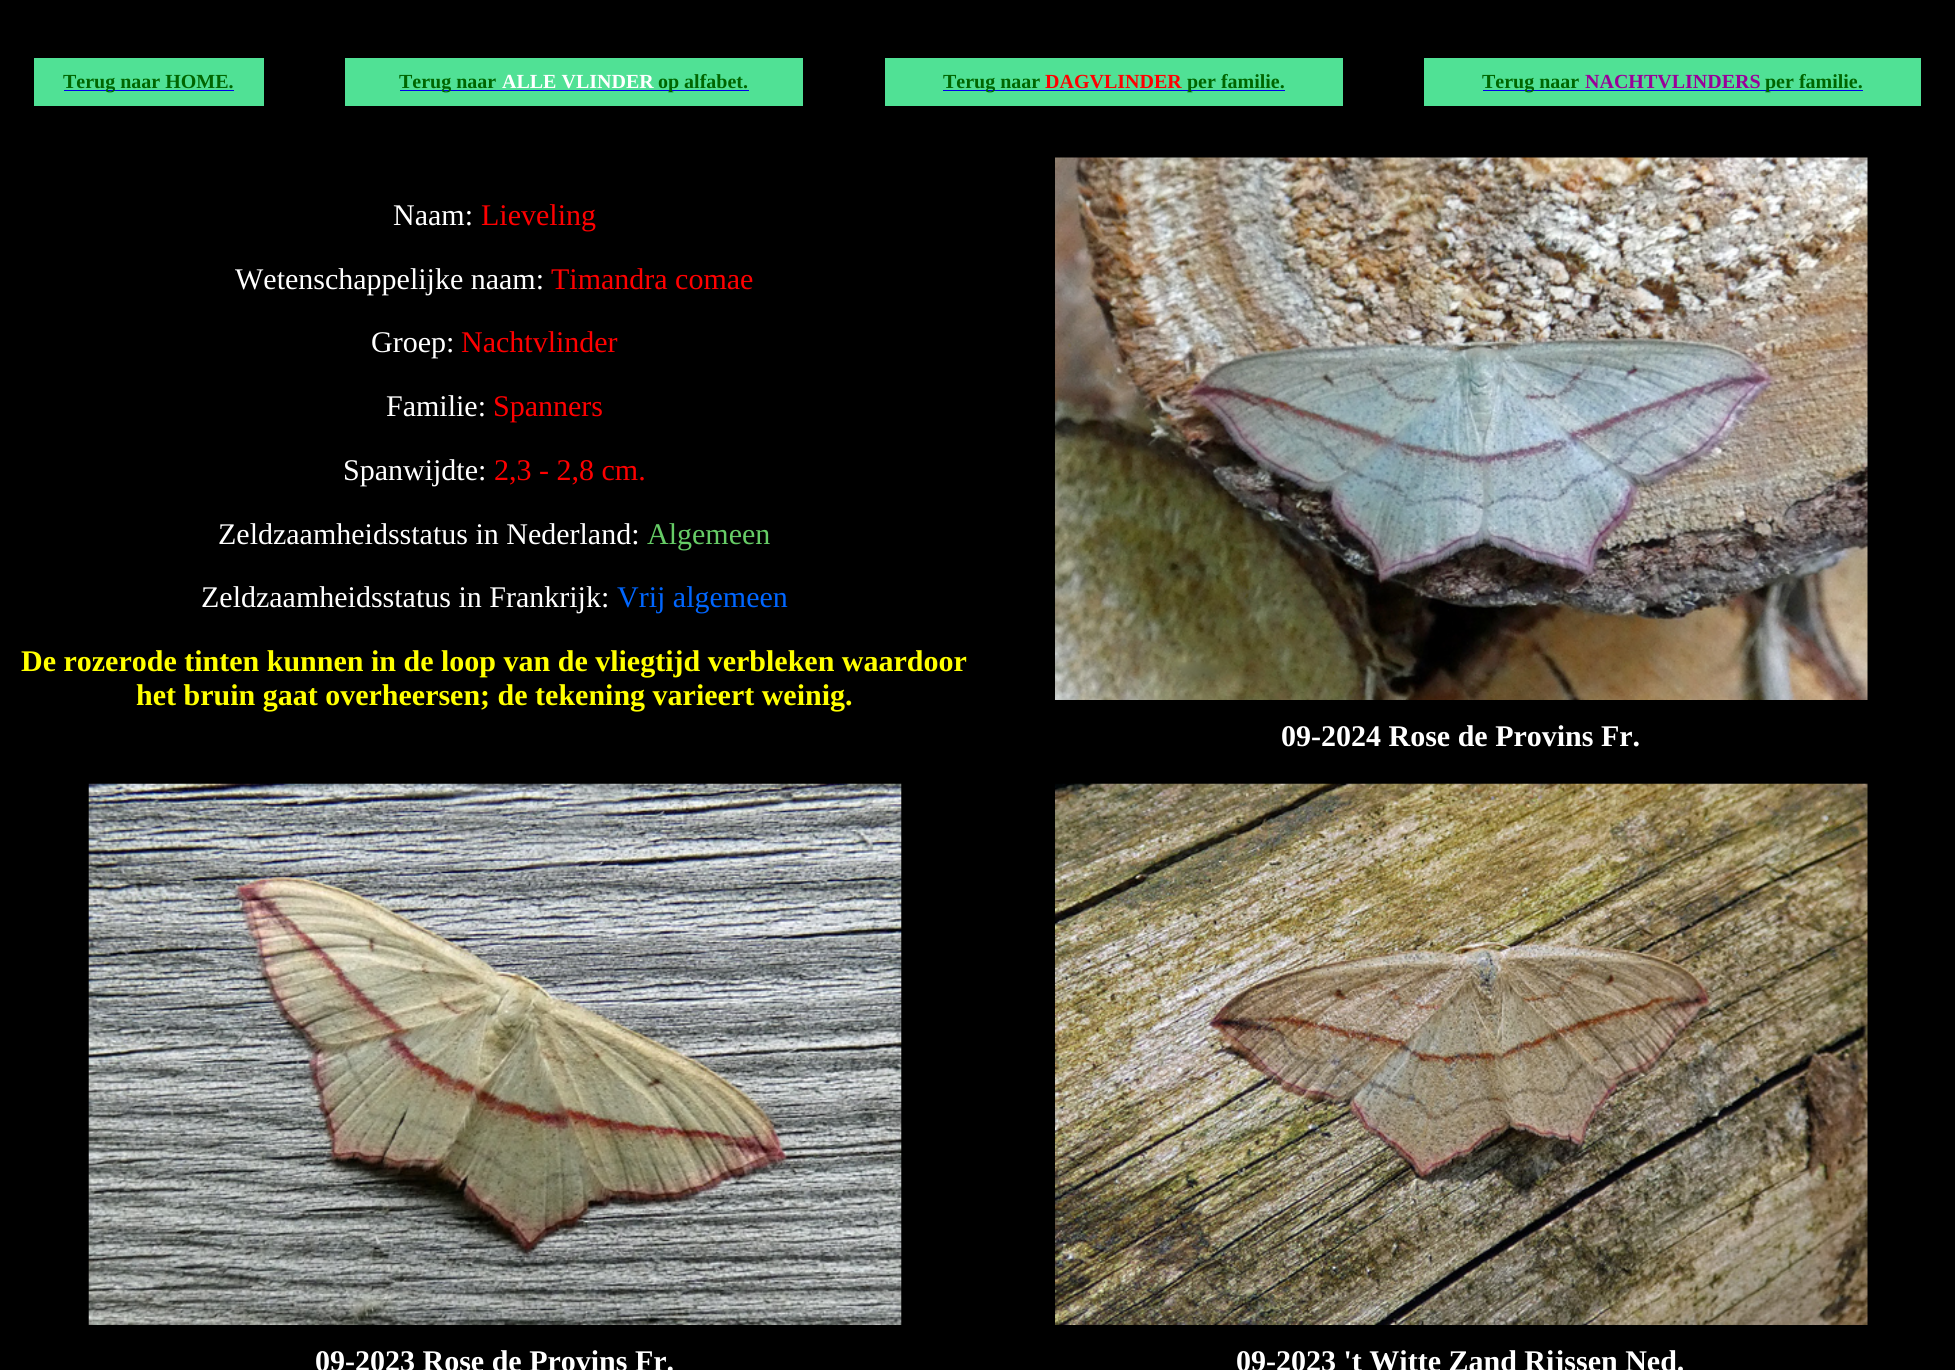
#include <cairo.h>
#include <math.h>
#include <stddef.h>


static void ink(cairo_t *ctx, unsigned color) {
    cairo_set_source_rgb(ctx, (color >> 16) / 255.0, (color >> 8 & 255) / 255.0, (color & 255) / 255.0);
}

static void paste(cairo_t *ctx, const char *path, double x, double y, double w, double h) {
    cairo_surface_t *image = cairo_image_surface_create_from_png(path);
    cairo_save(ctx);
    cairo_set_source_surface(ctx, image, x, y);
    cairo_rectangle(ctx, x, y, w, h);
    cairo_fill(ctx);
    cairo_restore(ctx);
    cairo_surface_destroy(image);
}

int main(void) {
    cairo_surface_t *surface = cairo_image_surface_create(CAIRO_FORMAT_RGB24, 1955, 1370);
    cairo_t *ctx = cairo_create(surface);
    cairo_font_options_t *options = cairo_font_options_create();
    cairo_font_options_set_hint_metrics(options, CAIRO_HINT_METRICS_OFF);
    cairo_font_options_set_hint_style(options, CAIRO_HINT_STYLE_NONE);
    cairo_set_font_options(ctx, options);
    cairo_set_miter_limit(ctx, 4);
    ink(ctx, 0x000000);
    cairo_paint(ctx);
    ink(ctx, 0x50E195);
    cairo_rectangle(ctx, 34, 58, 230, 48);
    cairo_fill(ctx);
    ink(ctx, 0x0000EE);
    cairo_rectangle(ctx, 64, 90, 170, 1);
    cairo_fill(ctx);
    cairo_select_font_face(ctx, "Liberation Serif", CAIRO_FONT_SLANT_NORMAL, CAIRO_FONT_WEIGHT_BOLD);
    cairo_set_font_size(ctx, 20);
    ink(ctx, 0x006600);
    cairo_move_to(ctx, 63, 88);
    cairo_show_text(ctx, "Terug naar HOME.");
    ink(ctx, 0x50E195);
    cairo_rectangle(ctx, 345, 58, 458, 48);
    cairo_fill(ctx);
    ink(ctx, 0x0000EE);
    cairo_rectangle(ctx, 400, 90, 96, 1);
    cairo_fill(ctx);
    ink(ctx, 0x006600);
    cairo_move_to(ctx, 399, 88);
    cairo_show_text(ctx, "Terug naar");
    ink(ctx, 0x0000EE);
    cairo_rectangle(ctx, 496, 90, 253, 1);
    cairo_fill(ctx);
    ink(ctx, 0xFFFFFF);
    cairo_move_to(ctx, 502, 88);
    cairo_show_text(ctx, "ALLE VLINDER");
    ink(ctx, 0x006600);
    cairo_move_to(ctx, 658, 88);
    cairo_show_text(ctx, "op alfabet.");
    ink(ctx, 0x50E195);
    cairo_rectangle(ctx, 885, 58, 458, 48);
    cairo_fill(ctx);
    ink(ctx, 0x0000EE);
    cairo_rectangle(ctx, 943, 90, 342, 1);
    cairo_fill(ctx);
    ink(ctx, 0x006600);
    cairo_move_to(ctx, 943, 88);
    cairo_show_text(ctx, "Terug naar");
    ink(ctx, 0xFF0000);
    cairo_move_to(ctx, 1045, 88);
    cairo_show_text(ctx, "DAGVLINDER");
    ink(ctx, 0x006600);
    cairo_move_to(ctx, 1187, 88);
    cairo_show_text(ctx, "per familie.");
    ink(ctx, 0x50E195);
    cairo_rectangle(ctx, 1424, 58, 497, 48);
    cairo_fill(ctx);
    ink(ctx, 0x0000EE);
    cairo_rectangle(ctx, 1483, 90, 380, 1);
    cairo_fill(ctx);
    ink(ctx, 0x006600);
    cairo_move_to(ctx, 1482, 88);
    cairo_show_text(ctx, "Terug naar");
    ink(ctx, 0x990099);
    cairo_move_to(ctx, 1585, 88);
    cairo_show_text(ctx, "NACHTVLINDERS");
    ink(ctx, 0x006600);
    cairo_move_to(ctx, 1765, 88);
    cairo_show_text(ctx, "per familie.");
    cairo_select_font_face(ctx, "Liberation Serif", CAIRO_FONT_SLANT_NORMAL, CAIRO_FONT_WEIGHT_NORMAL);
    cairo_set_font_size(ctx, 30);
    ink(ctx, 0xFFFFFF);
    cairo_move_to(ctx, 393, 225);
    cairo_show_text(ctx, "Naam:");
    ink(ctx, 0xFF0000);
    cairo_move_to(ctx, 481, 225);
    cairo_show_text(ctx, "Lieveling");
    ink(ctx, 0xFFFFFF);
    cairo_move_to(ctx, 235, 289);
    cairo_show_text(ctx, "Wetenschappelijke naam:");
    ink(ctx, 0xFF0000);
    cairo_move_to(ctx, 551, 289);
    cairo_show_text(ctx, "Timandra comae");
    ink(ctx, 0xFFFFFF);
    cairo_move_to(ctx, 371, 352);
    cairo_show_text(ctx, "Groep:");
    ink(ctx, 0xFF0000);
    cairo_move_to(ctx, 461, 352);
    cairo_show_text(ctx, "Nachtvlinder");
    ink(ctx, 0xFFFFFF);
    cairo_move_to(ctx, 386, 416);
    cairo_show_text(ctx, "Familie:");
    ink(ctx, 0xFF0000);
    cairo_move_to(ctx, 493, 416);
    cairo_show_text(ctx, "Spanners");
    ink(ctx, 0xFFFFFF);
    cairo_move_to(ctx, 343, 480);
    cairo_show_text(ctx, "Spanwijdte:");
    ink(ctx, 0xFF0000);
    cairo_move_to(ctx, 494, 480);
    cairo_show_text(ctx, "2,3 - 2,8 cm.");
    ink(ctx, 0xFFFFFF);
    cairo_move_to(ctx, 218, 544);
    cairo_show_text(ctx, "Zeldzaamheidsstatus in Nederland:");
    ink(ctx, 0x66CC66);
    cairo_move_to(ctx, 647, 544);
    cairo_show_text(ctx, "Algemeen");
    ink(ctx, 0xFFFFFF);
    cairo_move_to(ctx, 201, 607);
    cairo_show_text(ctx, "Zeldzaamheidsstatus in Frankrijk:");
    ink(ctx, 0x0066FF);
    cairo_move_to(ctx, 617, 607);
    cairo_show_text(ctx, "Vrij algemeen");
    cairo_select_font_face(ctx, "Liberation Serif", CAIRO_FONT_SLANT_NORMAL, CAIRO_FONT_WEIGHT_BOLD);
    ink(ctx, 0xFFFF00);
    cairo_move_to(ctx, 21, 671);
    cairo_show_text(ctx, "De rozerode tinten kunnen in de loop van de vliegtijd verbleken waardoor");
    cairo_move_to(ctx, 136, 705);
    cairo_show_text(ctx, "het bruin gaat overheersen; de tekening varieert weinig.");
    paste(ctx, "media/1.png", 1055, 157, 813, 543);
    ink(ctx, 0xFFFFFF);
    cairo_move_to(ctx, 1281, 746);
    cairo_show_text(ctx, "09-2024 Rose de Provins Fr.");
    paste(ctx, "media/2.png", 88, 783, 814, 542);
    cairo_move_to(ctx, 315, 1371);
    cairo_show_text(ctx, "09-2023 Rose de Provins Fr.");
    paste(ctx, "media/3.png", 1055, 783, 813, 542);
    cairo_move_to(ctx, 1236, 1371);
    cairo_show_text(ctx, "09-2023 't Witte Zand Rijssen Ned.");
    cairo_surface_write_to_png(surface, "image.png");
    cairo_font_options_destroy(options);
    cairo_destroy(ctx);
    cairo_surface_destroy(surface);
    return 0;
}
